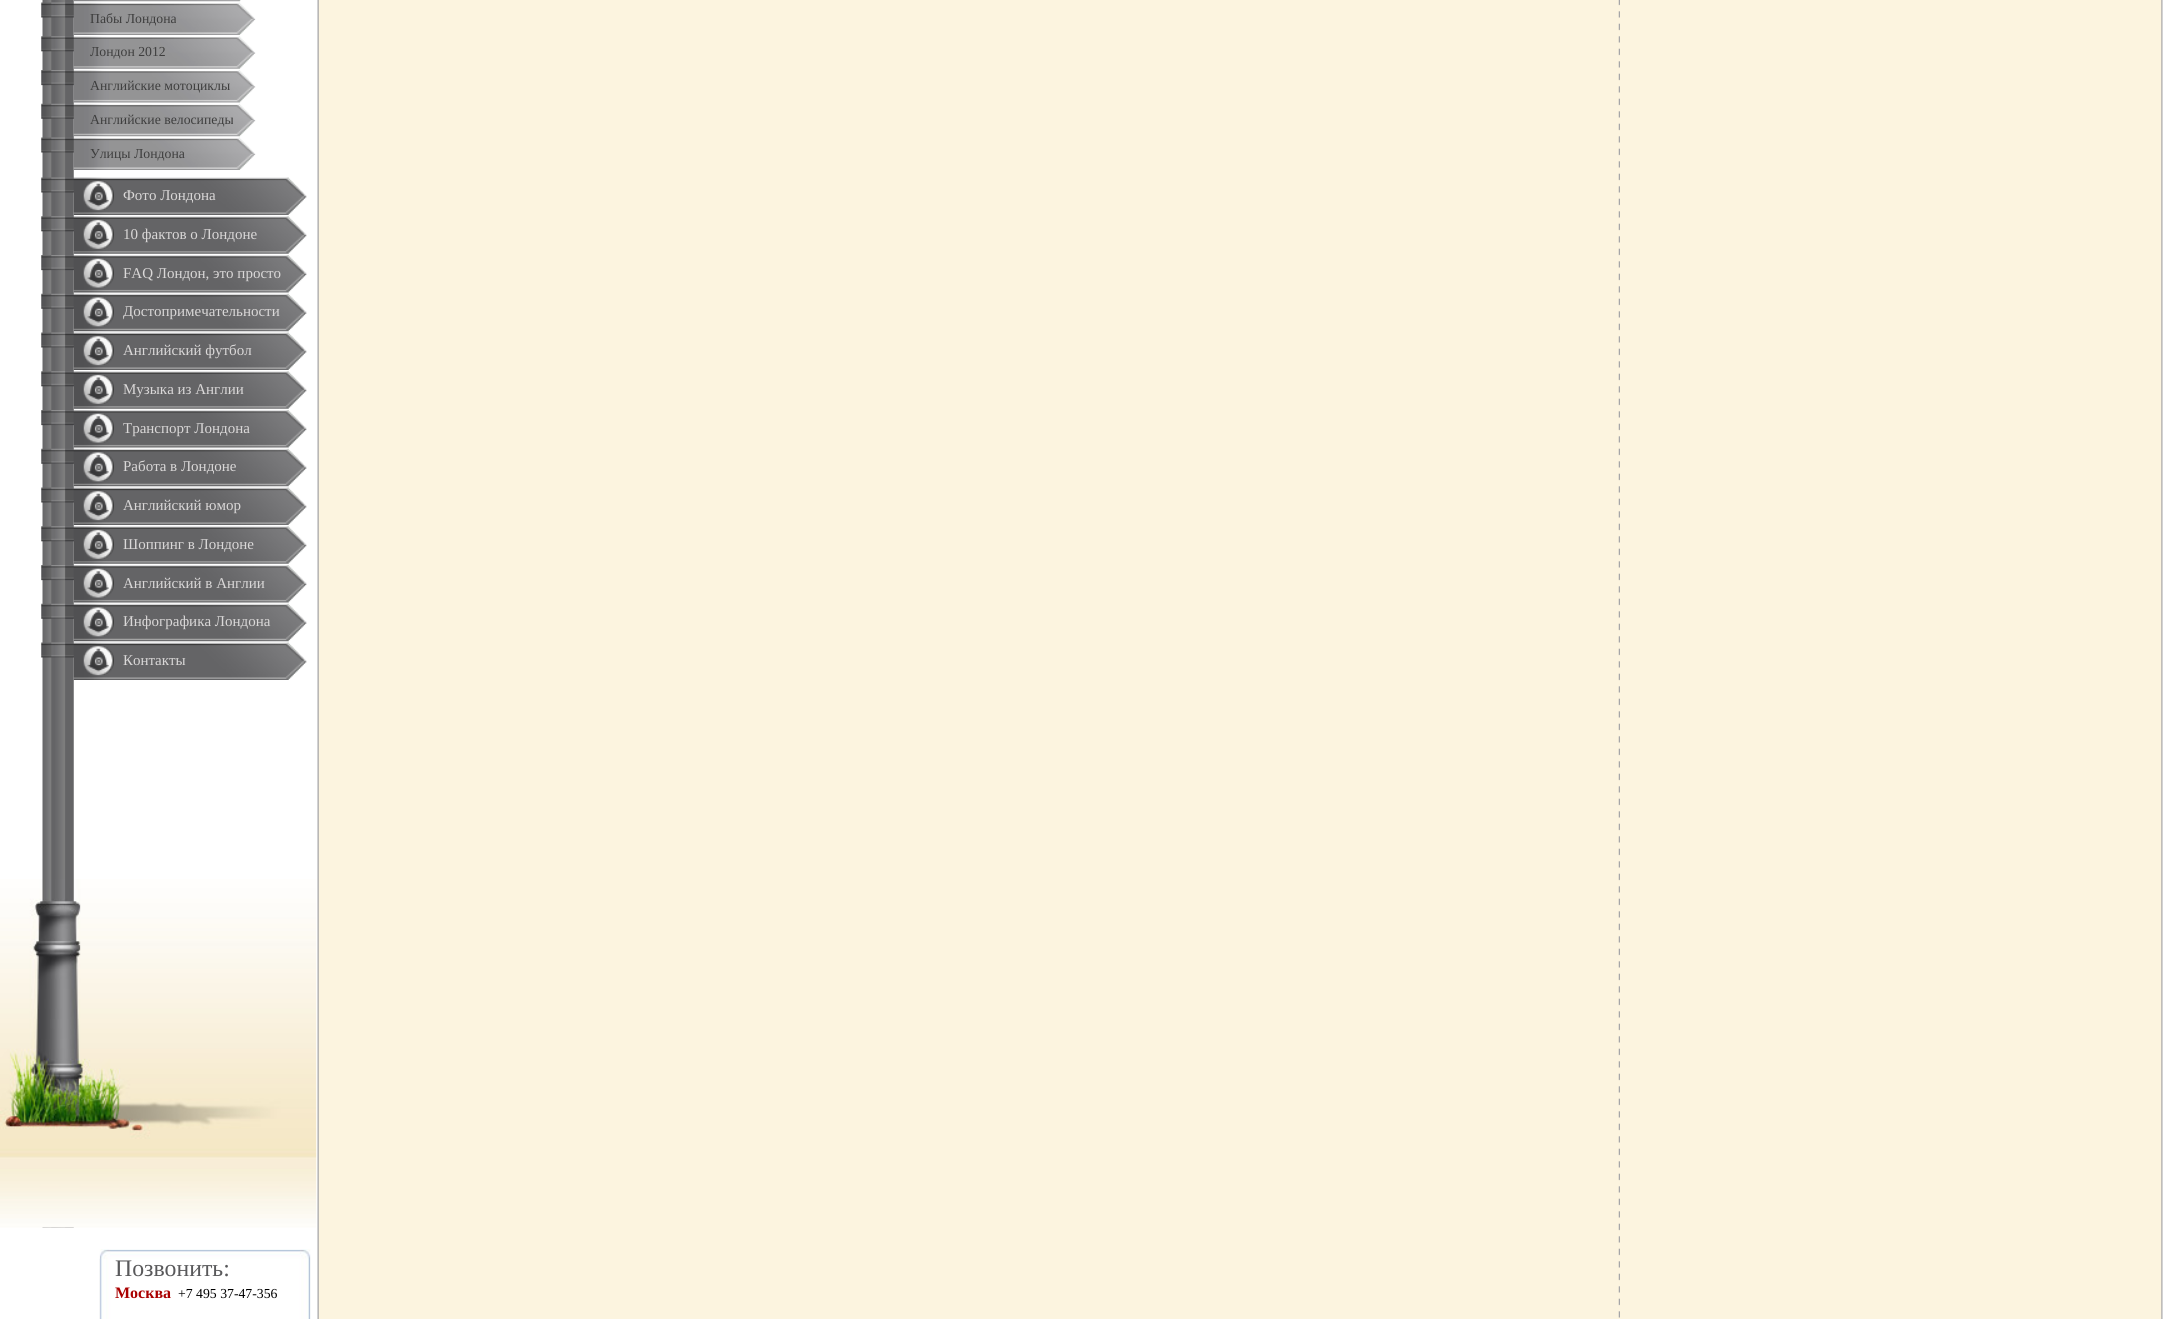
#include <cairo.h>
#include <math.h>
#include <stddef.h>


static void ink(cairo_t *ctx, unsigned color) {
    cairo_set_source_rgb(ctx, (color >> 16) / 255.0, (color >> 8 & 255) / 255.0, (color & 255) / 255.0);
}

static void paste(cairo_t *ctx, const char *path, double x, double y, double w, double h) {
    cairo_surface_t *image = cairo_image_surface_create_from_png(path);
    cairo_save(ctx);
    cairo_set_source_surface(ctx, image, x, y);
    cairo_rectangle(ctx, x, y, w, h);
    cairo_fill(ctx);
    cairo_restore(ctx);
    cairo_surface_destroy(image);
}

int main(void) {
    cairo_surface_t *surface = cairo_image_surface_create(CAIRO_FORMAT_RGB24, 2167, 1319);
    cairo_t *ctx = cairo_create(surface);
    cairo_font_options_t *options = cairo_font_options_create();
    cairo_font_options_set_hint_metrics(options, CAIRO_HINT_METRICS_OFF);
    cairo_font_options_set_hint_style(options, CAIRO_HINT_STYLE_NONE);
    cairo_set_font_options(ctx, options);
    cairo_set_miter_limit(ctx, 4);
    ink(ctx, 0xFFFFFF);
    cairo_paint(ctx);
    paste(ctx, "media/1.png", 42, 0, 32, 1228);
    paste(ctx, "media/2.png", 74, 0, 167, 2);
    paste(ctx, "media/3.png", 41, 2, 215, 33);
    cairo_select_font_face(ctx, "Liberation Serif", CAIRO_FONT_SLANT_NORMAL, CAIRO_FONT_WEIGHT_NORMAL);
    cairo_set_font_size(ctx, 13.75);
    ink(ctx, 0x3E3E3E);
    cairo_move_to(ctx, 90, 23);
    cairo_show_text(ctx, "Пабы Лондона");
    paste(ctx, "media/4.png", 41, 36, 215, 33);
    cairo_move_to(ctx, 90, 56);
    cairo_show_text(ctx, "Лондон 2012");
    paste(ctx, "media/5.png", 41, 70, 215, 33);
    cairo_move_to(ctx, 90, 90);
    cairo_show_text(ctx, "Английские мотоциклы");
    paste(ctx, "media/6.png", 41, 103, 215, 34);
    cairo_move_to(ctx, 90, 124);
    cairo_show_text(ctx, "Английские велосипеды");
    paste(ctx, "media/3.png", 41, 137, 215, 33);
    cairo_move_to(ctx, 90, 158);
    cairo_show_text(ctx, "Улицы Лондона");
    paste(ctx, "media/7.png", 41, 177, 266, 38);
    cairo_set_font_size(ctx, 15);
    ink(ctx, 0xDAD8D8);
    cairo_move_to(ctx, 123, 200);
    cairo_show_text(ctx, "Фото Лондона");
    paste(ctx, "media/8.png", 41, 216, 266, 38);
    cairo_move_to(ctx, 123, 239);
    cairo_show_text(ctx, "10 фактов о Лондоне");
    paste(ctx, "media/9.png", 41, 255, 266, 38);
    cairo_move_to(ctx, 123, 278);
    cairo_show_text(ctx, "FAQ Лондон, это просто");
    paste(ctx, "media/10.png", 41, 293, 266, 39);
    cairo_move_to(ctx, 123, 316);
    cairo_show_text(ctx, "Достопримечательности");
    paste(ctx, "media/7.png", 41, 332, 266, 38);
    cairo_move_to(ctx, 123, 355);
    cairo_show_text(ctx, "Английский футбол");
    paste(ctx, "media/8.png", 41, 371, 266, 38);
    cairo_move_to(ctx, 123, 394);
    cairo_show_text(ctx, "Музыка из Англии");
    paste(ctx, "media/9.png", 41, 410, 266, 38);
    cairo_move_to(ctx, 123, 433);
    cairo_show_text(ctx, "Транспорт Лондона");
    paste(ctx, "media/11.png", 41, 448, 266, 39);
    cairo_move_to(ctx, 123, 471);
    cairo_show_text(ctx, "Работа в Лондоне");
    paste(ctx, "media/7.png", 41, 487, 266, 38);
    cairo_move_to(ctx, 123, 510);
    cairo_show_text(ctx, "Английский юмор");
    paste(ctx, "media/8.png", 41, 526, 266, 38);
    cairo_move_to(ctx, 123, 549);
    cairo_show_text(ctx, "Шоппинг в Лондоне");
    paste(ctx, "media/9.png", 41, 565, 266, 38);
    cairo_move_to(ctx, 123, 588);
    cairo_show_text(ctx, "Английский в Англии");
    paste(ctx, "media/11.png", 41, 603, 266, 39);
    cairo_move_to(ctx, 123, 626);
    cairo_show_text(ctx, "Инфографика Лондона");
    paste(ctx, "media/7.png", 41, 642, 266, 38);
    cairo_move_to(ctx, 123, 665);
    cairo_show_text(ctx, "Контакты");
    paste(ctx, "media/12.png", 0, 879, 317, 349);
    ink(ctx, 0xFCF4DF);
    cairo_rectangle(ctx, 319, 0, 1842, 1319);
    cairo_fill(ctx);
    paste(ctx, "media/13.png", 317, 0, 2, 1319);
    paste(ctx, "media/14.png", 1618, 0, 2, 1318);
    paste(ctx, "media/15.png", 2161, 0, 6, 1319);
    paste(ctx, "media/16.png", 99, 1249, 212, 70);
    cairo_set_font_size(ctx, 23.75);
    ink(ctx, 0x59595B);
    cairo_move_to(ctx, 115, 1276);
    cairo_show_text(ctx, "Позвонить:");
    cairo_select_font_face(ctx, "Liberation Serif", CAIRO_FONT_SLANT_NORMAL, CAIRO_FONT_WEIGHT_BOLD);
    cairo_set_font_size(ctx, 16);
    ink(ctx, 0xAA0000);
    cairo_move_to(ctx, 115, 1298);
    cairo_show_text(ctx, "Москва");
    cairo_select_font_face(ctx, "Liberation Serif", CAIRO_FONT_SLANT_NORMAL, CAIRO_FONT_WEIGHT_NORMAL);
    cairo_set_font_size(ctx, 13.75);
    ink(ctx, 0x000000);
    cairo_move_to(ctx, 178, 1298);
    cairo_show_text(ctx, "+7 495 37-47-356");
    cairo_surface_write_to_png(surface, "image.png");
    cairo_font_options_destroy(options);
    cairo_destroy(ctx);
    cairo_surface_destroy(surface);
    return 0;
}
